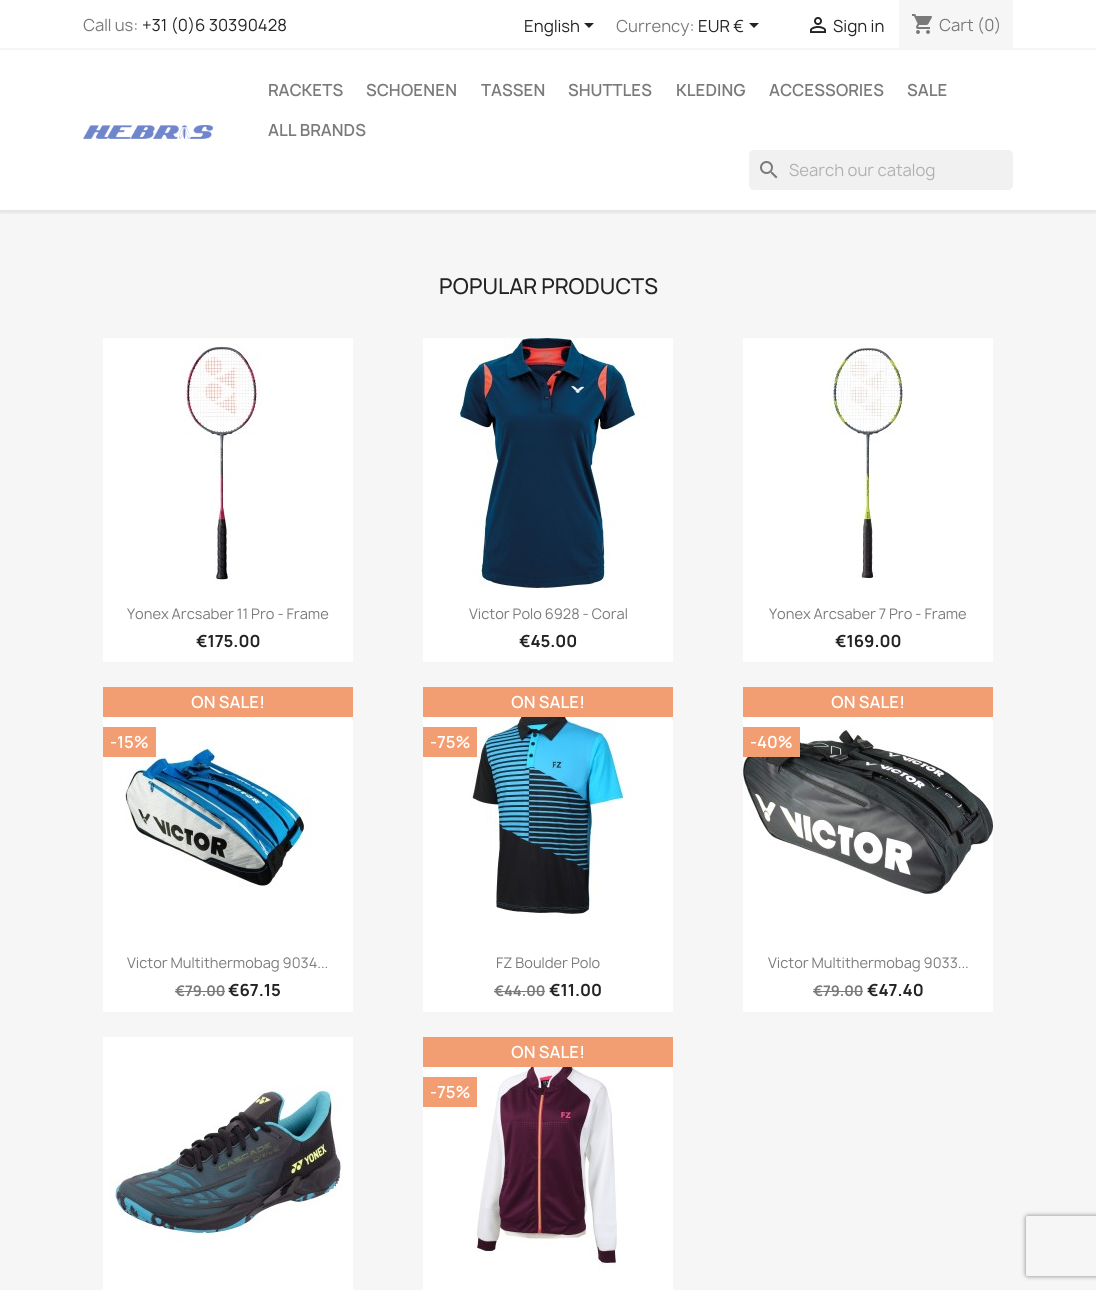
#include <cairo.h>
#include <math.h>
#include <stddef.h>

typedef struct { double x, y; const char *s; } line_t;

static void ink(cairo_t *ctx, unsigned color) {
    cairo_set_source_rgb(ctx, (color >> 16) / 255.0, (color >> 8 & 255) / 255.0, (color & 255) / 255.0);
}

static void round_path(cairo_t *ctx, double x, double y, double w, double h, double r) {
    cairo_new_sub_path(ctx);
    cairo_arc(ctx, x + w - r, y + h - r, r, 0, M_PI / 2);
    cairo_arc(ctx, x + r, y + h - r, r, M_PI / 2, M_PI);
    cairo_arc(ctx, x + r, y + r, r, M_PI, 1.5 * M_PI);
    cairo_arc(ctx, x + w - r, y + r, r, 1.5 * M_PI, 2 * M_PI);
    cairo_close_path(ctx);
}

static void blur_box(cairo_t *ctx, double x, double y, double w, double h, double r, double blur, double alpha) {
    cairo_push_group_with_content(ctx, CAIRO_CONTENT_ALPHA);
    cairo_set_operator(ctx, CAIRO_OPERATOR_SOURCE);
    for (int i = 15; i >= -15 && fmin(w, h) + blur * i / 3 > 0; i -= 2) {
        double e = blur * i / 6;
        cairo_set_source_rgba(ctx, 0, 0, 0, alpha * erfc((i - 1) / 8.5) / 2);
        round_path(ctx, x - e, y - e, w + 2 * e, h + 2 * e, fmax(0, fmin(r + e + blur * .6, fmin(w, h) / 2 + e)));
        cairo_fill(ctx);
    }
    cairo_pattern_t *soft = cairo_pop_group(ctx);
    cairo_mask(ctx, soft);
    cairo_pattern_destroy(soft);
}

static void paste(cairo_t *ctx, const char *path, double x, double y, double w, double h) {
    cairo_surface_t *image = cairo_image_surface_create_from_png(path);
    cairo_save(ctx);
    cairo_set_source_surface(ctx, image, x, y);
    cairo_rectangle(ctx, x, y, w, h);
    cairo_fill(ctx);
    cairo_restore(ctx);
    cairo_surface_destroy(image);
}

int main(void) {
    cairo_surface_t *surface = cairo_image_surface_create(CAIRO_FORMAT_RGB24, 1096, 1290);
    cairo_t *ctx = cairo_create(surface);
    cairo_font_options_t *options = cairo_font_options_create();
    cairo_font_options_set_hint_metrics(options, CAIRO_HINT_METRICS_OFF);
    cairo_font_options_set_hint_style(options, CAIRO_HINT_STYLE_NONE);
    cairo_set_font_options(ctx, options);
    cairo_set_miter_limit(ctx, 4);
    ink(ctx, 0xFFFFFF);
    cairo_paint(ctx);
    ink(ctx, 0xF6F6F6);
    cairo_rectangle(ctx, 0, 210, 1096, 1080);
    cairo_fill(ctx);
    cairo_save(ctx);
    cairo_rectangle(ctx, 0, 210, 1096, 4);
    cairo_clip(ctx);
    ink(ctx, 0x000000);
    blur_box(ctx, 0, 2, 1096, 210, 0, 2.5, 0.11);
    cairo_restore(ctx);
    cairo_rectangle(ctx, 0, 48, 1096, 2);
    cairo_fill(ctx);
    cairo_select_font_face(ctx, "Manrope", CAIRO_FONT_SLANT_NORMAL, CAIRO_FONT_WEIGHT_NORMAL);
    cairo_set_font_size(ctx, 16);
    ink(ctx, 0x7A7A7A);
    cairo_move_to(ctx, 83, 31);
    cairo_show_text(ctx, "Call us:");
    ink(ctx, 0x232323);
    cairo_move_to(ctx, 142, 31);
    cairo_show_text(ctx, "+31 (0)6 30390428");
    cairo_move_to(ctx, 524, 32);
    cairo_show_text(ctx, "English");
    cairo_new_path(ctx);
    cairo_move_to(ctx, 584, 23);
    cairo_line_to(ctx, 594, 23);
    cairo_line_to(ctx, 589, 28);
    cairo_close_path(ctx);
    cairo_fill(ctx);
    ink(ctx, 0x7A7A7A);
    cairo_move_to(ctx, 616, 32);
    cairo_show_text(ctx, "Currency:");
    ink(ctx, 0x232323);
    cairo_move_to(ctx, 698, 32);
    cairo_show_text(ctx, "EUR €");
    cairo_new_path(ctx);
    cairo_move_to(ctx, 749, 23);
    cairo_line_to(ctx, 759, 23);
    cairo_line_to(ctx, 754, 28);
    cairo_close_path(ctx);
    cairo_fill(ctx);
    paste(ctx, "media/1.png", 810, 17, 16, 16);
    cairo_move_to(ctx, 833, 32);
    cairo_show_text(ctx, "Sign in");
    ink(ctx, 0xF6F6F6);
    cairo_rectangle(ctx, 899, 0, 114, 48);
    cairo_fill(ctx);
    paste(ctx, "media/2.png", 912, 14, 20, 20);
    ink(ctx, 0x7A7A7A);
    cairo_move_to(ctx, 939, 31);
    cairo_show_text(ctx, "Cart (0)");
    paste(ctx, "media/3.png", 83, 125, 130, 14);
    cairo_select_font_face(ctx, "Manrope SemiBold", CAIRO_FONT_SLANT_NORMAL, CAIRO_FONT_WEIGHT_NORMAL);
    {
        static const line_t items[] = {
            {268, 96, "RACKETS"},
            {366, 96, "SCHOENEN"},
            {481, 96, "TASSEN"},
            {568, 96, "SHUTTLES"},
            {676, 96, "KLEDING"},
            {769, 96, "ACCESSORIES"},
            {907, 96, "SALE"},
            {268, 136, "ALL BRANDS"},
        };
        for (size_t i = 0; i < sizeof items / sizeof *items; i++) {
            cairo_move_to(ctx, items[i].x, items[i].y);
            cairo_show_text(ctx, items[i].s);
        }
    }
    ink(ctx, 0xF1F1F1);
    round_path(ctx, 749, 150, 264, 40, 5);
    cairo_fill(ctx);
    paste(ctx, "media/4.png", 760, 161, 18, 18);
    cairo_select_font_face(ctx, "Manrope", CAIRO_FONT_SLANT_NORMAL, CAIRO_FONT_WEIGHT_NORMAL);
    ink(ctx, 0xB1B1B1);
    cairo_move_to(ctx, 789, 176);
    cairo_show_text(ctx, "Search our catalog");
    cairo_select_font_face(ctx, "Manrope Medium", CAIRO_FONT_SLANT_NORMAL, CAIRO_FONT_WEIGHT_NORMAL);
    cairo_set_font_size(ctx, 21);
    ink(ctx, 0x232323);
    cairo_move_to(ctx, 439, 294);
    cairo_show_text(ctx, "POPULAR PRODUCTS");
    ink(ctx, 0xFFFFFF);
    cairo_rectangle(ctx, 103, 338, 250, 324);
    cairo_fill(ctx);
    paste(ctx, "media/5.png", 183, 346, 80, 238);
    cairo_select_font_face(ctx, "Manrope", CAIRO_FONT_SLANT_NORMAL, CAIRO_FONT_WEIGHT_NORMAL);
    cairo_set_font_size(ctx, 14);
    ink(ctx, 0x7A7A7A);
    cairo_move_to(ctx, 127, 619);
    cairo_show_text(ctx, "Yonex Arcsaber 11 Pro - Frame");
    cairo_select_font_face(ctx, "Manrope", CAIRO_FONT_SLANT_NORMAL, CAIRO_FONT_WEIGHT_BOLD);
    cairo_set_font_size(ctx, 16);
    ink(ctx, 0x232323);
    cairo_move_to(ctx, 196, 647);
    cairo_show_text(ctx, "€175.00");
    ink(ctx, 0xFFFFFF);
    cairo_rectangle(ctx, 423, 338, 250, 324);
    cairo_fill(ctx);
    paste(ctx, "media/6.png", 455, 338, 192, 250);
    cairo_select_font_face(ctx, "Manrope", CAIRO_FONT_SLANT_NORMAL, CAIRO_FONT_WEIGHT_NORMAL);
    cairo_set_font_size(ctx, 14);
    ink(ctx, 0x7A7A7A);
    cairo_move_to(ctx, 469, 619);
    cairo_show_text(ctx, "Victor Polo 6928 - Coral");
    cairo_select_font_face(ctx, "Manrope", CAIRO_FONT_SLANT_NORMAL, CAIRO_FONT_WEIGHT_BOLD);
    cairo_set_font_size(ctx, 16);
    ink(ctx, 0x232323);
    cairo_move_to(ctx, 519, 647);
    cairo_show_text(ctx, "€45.00");
    ink(ctx, 0xFFFFFF);
    cairo_rectangle(ctx, 743, 338, 250, 324);
    cairo_fill(ctx);
    paste(ctx, "media/7.png", 823, 346, 80, 232);
    cairo_select_font_face(ctx, "Manrope", CAIRO_FONT_SLANT_NORMAL, CAIRO_FONT_WEIGHT_NORMAL);
    cairo_set_font_size(ctx, 14);
    ink(ctx, 0x7A7A7A);
    cairo_move_to(ctx, 769, 619);
    cairo_show_text(ctx, "Yonex Arcsaber 7 Pro - Frame");
    cairo_select_font_face(ctx, "Manrope", CAIRO_FONT_SLANT_NORMAL, CAIRO_FONT_WEIGHT_BOLD);
    cairo_set_font_size(ctx, 16);
    ink(ctx, 0x232323);
    cairo_move_to(ctx, 835, 647);
    cairo_show_text(ctx, "€169.00");
    ink(ctx, 0xFFFFFF);
    cairo_rectangle(ctx, 103, 717, 250, 295);
    cairo_fill(ctx);
    ink(ctx, 0xF39D72);
    cairo_rectangle(ctx, 103, 687, 250, 30);
    cairo_fill(ctx);
    cairo_select_font_face(ctx, "Manrope SemiBold", CAIRO_FONT_SLANT_NORMAL, CAIRO_FONT_WEIGHT_NORMAL);
    ink(ctx, 0xFFFFFF);
    cairo_move_to(ctx, 191, 708);
    cairo_show_text(ctx, "ON SALE!");
    paste(ctx, "media/8.png", 120, 741, 191, 146);
    ink(ctx, 0xF39D72);
    cairo_rectangle(ctx, 103, 727, 53, 30);
    cairo_fill(ctx);
    ink(ctx, 0xFFFFFF);
    cairo_move_to(ctx, 110, 748);
    cairo_show_text(ctx, "-15%");
    cairo_select_font_face(ctx, "Manrope", CAIRO_FONT_SLANT_NORMAL, CAIRO_FONT_WEIGHT_NORMAL);
    cairo_set_font_size(ctx, 14);
    ink(ctx, 0x7A7A7A);
    cairo_move_to(ctx, 127, 968);
    cairo_show_text(ctx, "Victor Multithermobag 9034...");
    cairo_select_font_face(ctx, "Manrope", CAIRO_FONT_SLANT_NORMAL, CAIRO_FONT_WEIGHT_BOLD);
    cairo_move_to(ctx, 175, 996);
    cairo_show_text(ctx, "€79.00");
    cairo_rectangle(ctx, 175, 991, 50, 1);
    cairo_fill(ctx);
    cairo_set_font_size(ctx, 16);
    ink(ctx, 0x232323);
    cairo_move_to(ctx, 228, 996);
    cairo_show_text(ctx, "€67.15");
    ink(ctx, 0xFFFFFF);
    cairo_rectangle(ctx, 423, 717, 250, 295);
    cairo_fill(ctx);
    ink(ctx, 0xF39D72);
    cairo_rectangle(ctx, 423, 687, 250, 30);
    cairo_fill(ctx);
    cairo_select_font_face(ctx, "Manrope SemiBold", CAIRO_FONT_SLANT_NORMAL, CAIRO_FONT_WEIGHT_NORMAL);
    ink(ctx, 0xFFFFFF);
    cairo_move_to(ctx, 511, 708);
    cairo_show_text(ctx, "ON SALE!");
    paste(ctx, "media/9.png", 471, 717, 160, 200);
    ink(ctx, 0xF39D72);
    cairo_rectangle(ctx, 423, 727, 54, 30);
    cairo_fill(ctx);
    ink(ctx, 0xFFFFFF);
    cairo_move_to(ctx, 430, 748);
    cairo_show_text(ctx, "-75%");
    cairo_select_font_face(ctx, "Manrope", CAIRO_FONT_SLANT_NORMAL, CAIRO_FONT_WEIGHT_NORMAL);
    cairo_set_font_size(ctx, 14);
    ink(ctx, 0x7A7A7A);
    cairo_move_to(ctx, 496, 968);
    cairo_show_text(ctx, "FZ Boulder Polo");
    cairo_select_font_face(ctx, "Manrope", CAIRO_FONT_SLANT_NORMAL, CAIRO_FONT_WEIGHT_BOLD);
    cairo_move_to(ctx, 494, 996);
    cairo_show_text(ctx, "€44.00");
    cairo_rectangle(ctx, 494, 991, 51, 1);
    cairo_fill(ctx);
    cairo_set_font_size(ctx, 16);
    ink(ctx, 0x232323);
    cairo_move_to(ctx, 549, 996);
    cairo_show_text(ctx, "€11.00");
    ink(ctx, 0xFFFFFF);
    cairo_rectangle(ctx, 743, 717, 250, 295);
    cairo_fill(ctx);
    ink(ctx, 0xF39D72);
    cairo_rectangle(ctx, 743, 687, 250, 30);
    cairo_fill(ctx);
    cairo_select_font_face(ctx, "Manrope SemiBold", CAIRO_FONT_SLANT_NORMAL, CAIRO_FONT_WEIGHT_NORMAL);
    ink(ctx, 0xFFFFFF);
    cairo_move_to(ctx, 831, 708);
    cairo_show_text(ctx, "ON SALE!");
    paste(ctx, "media/10.png", 743, 727, 250, 168);
    ink(ctx, 0xF39D72);
    cairo_rectangle(ctx, 743, 727, 57, 30);
    cairo_fill(ctx);
    ink(ctx, 0xFFFFFF);
    cairo_move_to(ctx, 750, 748);
    cairo_show_text(ctx, "-40%");
    cairo_select_font_face(ctx, "Manrope", CAIRO_FONT_SLANT_NORMAL, CAIRO_FONT_WEIGHT_NORMAL);
    cairo_set_font_size(ctx, 14);
    ink(ctx, 0x7A7A7A);
    cairo_move_to(ctx, 768, 968);
    cairo_show_text(ctx, "Victor Multithermobag 9033...");
    cairo_select_font_face(ctx, "Manrope", CAIRO_FONT_SLANT_NORMAL, CAIRO_FONT_WEIGHT_BOLD);
    cairo_move_to(ctx, 813, 996);
    cairo_show_text(ctx, "€79.00");
    cairo_rectangle(ctx, 813, 991, 50, 1);
    cairo_fill(ctx);
    cairo_set_font_size(ctx, 16);
    ink(ctx, 0x232323);
    cairo_move_to(ctx, 867, 996);
    cairo_show_text(ctx, "€47.40");
    ink(ctx, 0xFFFFFF);
    cairo_rectangle(ctx, 103, 1037, 250, 253);
    cairo_fill(ctx);
    paste(ctx, "media/11.png", 109, 1085, 234, 157);
    cairo_rectangle(ctx, 423, 1067, 250, 223);
    cairo_fill(ctx);
    ink(ctx, 0xF39D72);
    cairo_rectangle(ctx, 423, 1037, 250, 30);
    cairo_fill(ctx);
    cairo_select_font_face(ctx, "Manrope SemiBold", CAIRO_FONT_SLANT_NORMAL, CAIRO_FONT_WEIGHT_NORMAL);
    ink(ctx, 0xFFFFFF);
    cairo_move_to(ctx, 511, 1058);
    cairo_show_text(ctx, "ON SALE!");
    paste(ctx, "media/12.png", 471, 1067, 149, 202);
    ink(ctx, 0xF39D72);
    cairo_rectangle(ctx, 423, 1077, 54, 30);
    cairo_fill(ctx);
    ink(ctx, 0xFFFFFF);
    cairo_move_to(ctx, 430, 1098);
    cairo_show_text(ctx, "-75%");
    cairo_save(ctx);
    cairo_set_fill_rule(ctx, CAIRO_FILL_RULE_EVEN_ODD);
    cairo_new_path(ctx);
    cairo_move_to(ctx, 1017, 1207);
    cairo_line_to(ctx, 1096, 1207);
    cairo_line_to(ctx, 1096, 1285);
    cairo_line_to(ctx, 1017, 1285);
    cairo_close_path(ctx);
    cairo_move_to(ctx, 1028, 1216);
    cairo_line_to(ctx, 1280, 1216);
    cairo_curve_to(ctx, 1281, 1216, 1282, 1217, 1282, 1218);
    cairo_line_to(ctx, 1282, 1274);
    cairo_curve_to(ctx, 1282, 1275, 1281, 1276, 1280, 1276);
    cairo_line_to(ctx, 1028, 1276);
    cairo_curve_to(ctx, 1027, 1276, 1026, 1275, 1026, 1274);
    cairo_line_to(ctx, 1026, 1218);
    cairo_curve_to(ctx, 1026, 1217, 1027, 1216, 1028, 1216);
    cairo_close_path(ctx);
    cairo_clip(ctx);
    ink(ctx, 0x808080);
    blur_box(ctx, 1026, 1216, 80, 60, 2, 2.5, 1);
    cairo_restore(ctx);
    cairo_surface_write_to_png(surface, "image.png");
    cairo_font_options_destroy(options);
    cairo_destroy(ctx);
    cairo_surface_destroy(surface);
    return 0;
}
